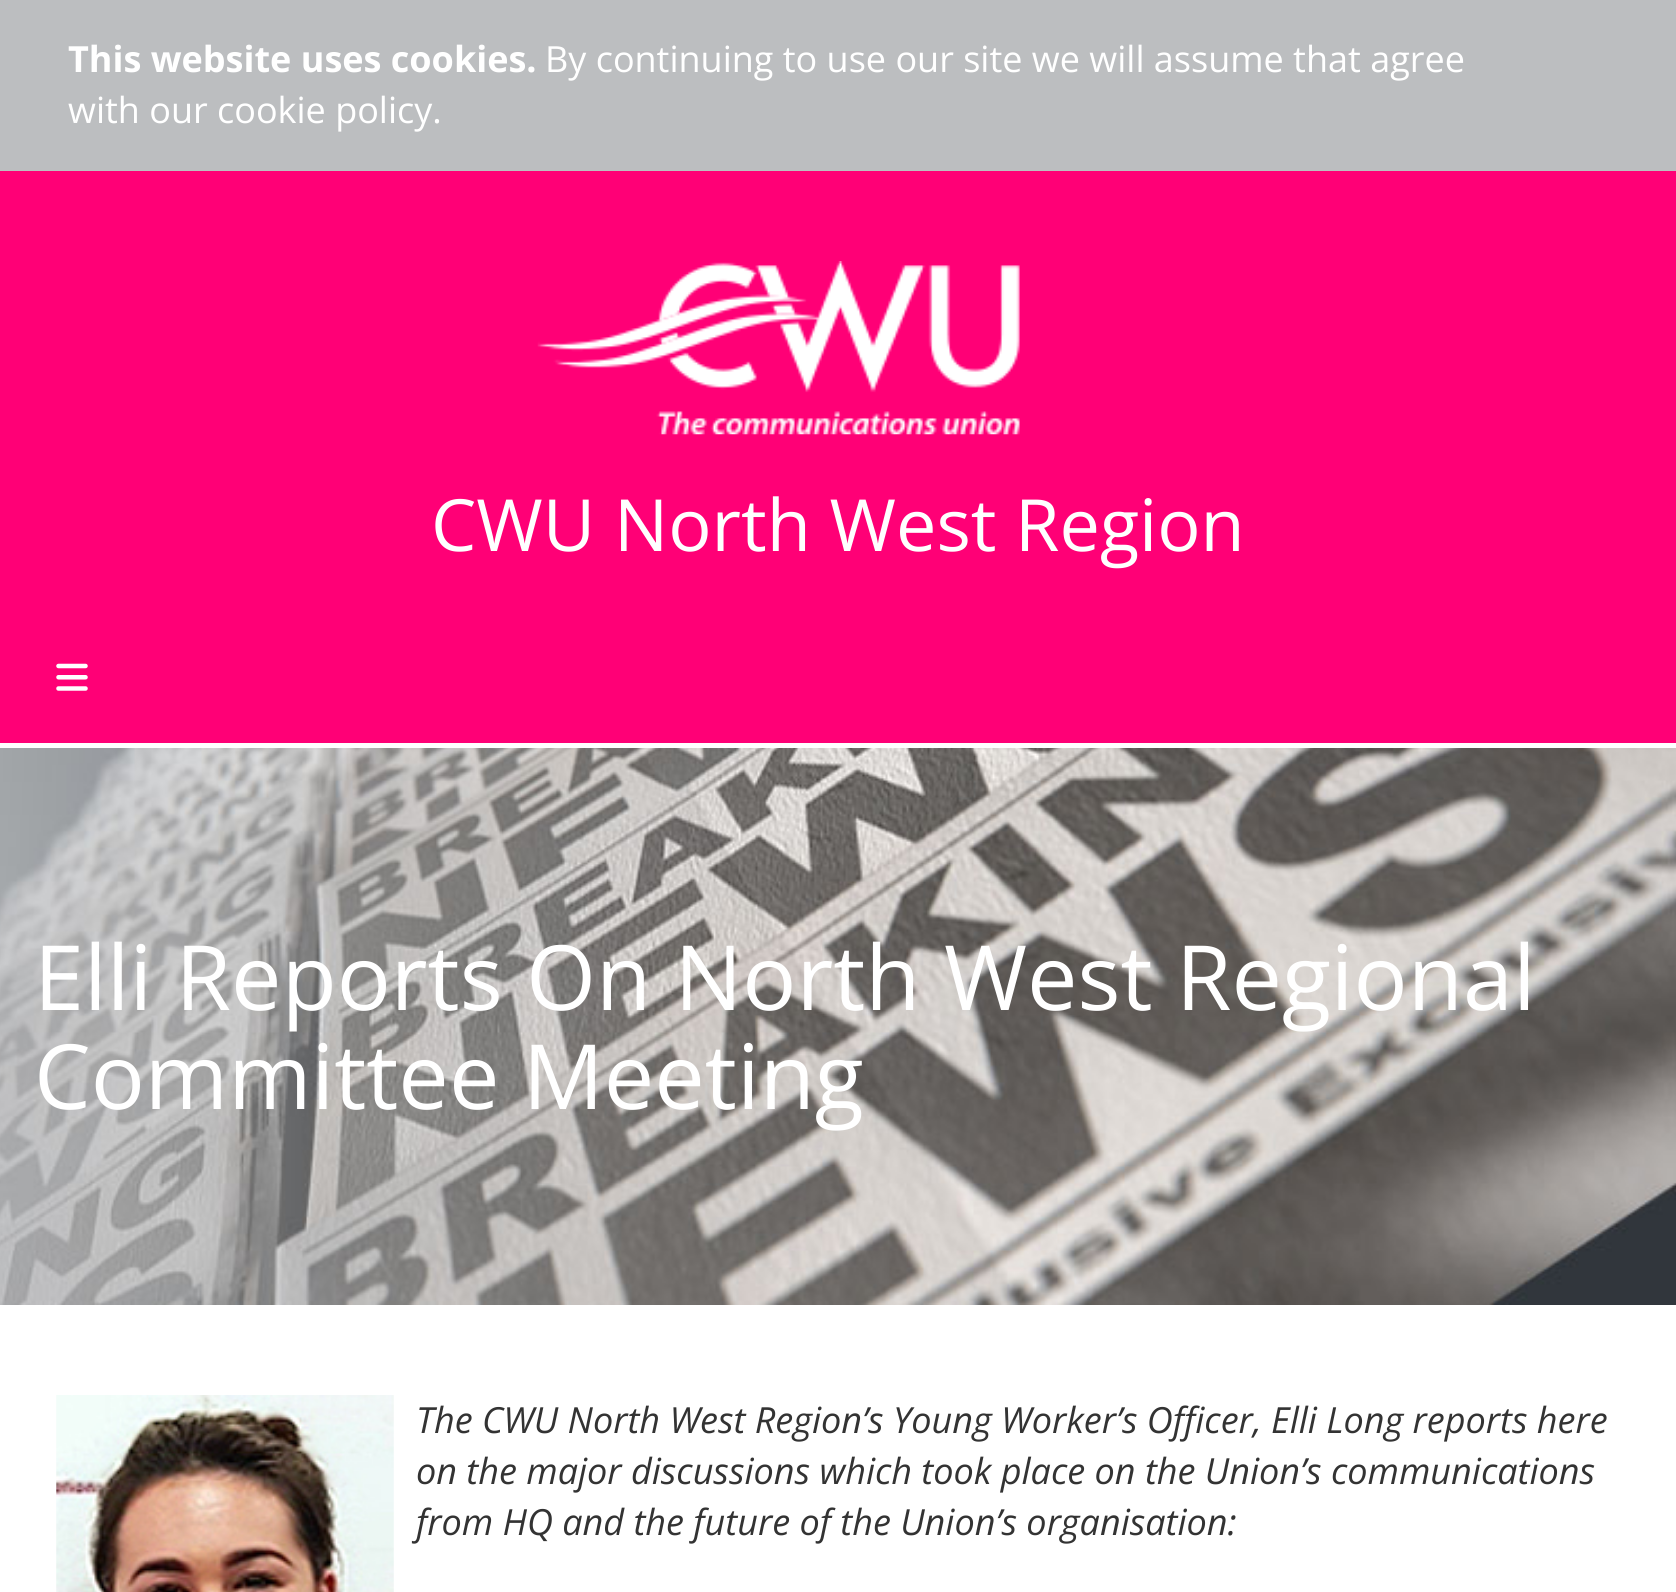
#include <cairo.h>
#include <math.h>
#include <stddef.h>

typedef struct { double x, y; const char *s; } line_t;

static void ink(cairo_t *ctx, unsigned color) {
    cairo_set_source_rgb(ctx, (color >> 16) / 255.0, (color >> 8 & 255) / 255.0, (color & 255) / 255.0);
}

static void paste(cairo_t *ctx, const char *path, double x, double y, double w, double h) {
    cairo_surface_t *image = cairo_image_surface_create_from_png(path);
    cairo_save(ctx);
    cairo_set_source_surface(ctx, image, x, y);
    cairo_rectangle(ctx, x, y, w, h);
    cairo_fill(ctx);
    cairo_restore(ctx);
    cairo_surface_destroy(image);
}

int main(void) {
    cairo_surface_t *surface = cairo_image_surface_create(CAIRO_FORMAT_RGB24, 1676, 1592);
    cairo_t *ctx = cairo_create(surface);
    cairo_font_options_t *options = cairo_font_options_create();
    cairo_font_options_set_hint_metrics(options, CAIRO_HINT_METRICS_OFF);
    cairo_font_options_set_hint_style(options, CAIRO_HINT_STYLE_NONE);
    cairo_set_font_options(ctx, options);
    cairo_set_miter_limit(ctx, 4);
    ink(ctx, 0xFFFFFF);
    cairo_paint(ctx);
    ink(ctx, 0xBCBEC0);
    cairo_rectangle(ctx, 0, 0, 1676, 171);
    cairo_fill(ctx);
    cairo_select_font_face(ctx, "Open Sans", CAIRO_FONT_SLANT_NORMAL, CAIRO_FONT_WEIGHT_BOLD);
    cairo_set_font_size(ctx, 36);
    ink(ctx, 0xFFFFFF);
    cairo_move_to(ctx, 68, 72);
    cairo_show_text(ctx, "This website uses cookies.");
    cairo_select_font_face(ctx, "Open Sans", CAIRO_FONT_SLANT_NORMAL, CAIRO_FONT_WEIGHT_NORMAL);
    cairo_move_to(ctx, 545, 72);
    cairo_show_text(ctx, "By continuing to use our site we will assume that agree");
    cairo_move_to(ctx, 68, 123);
    cairo_show_text(ctx, "with our cookie policy.");
    ink(ctx, 0xFF0076);
    cairo_rectangle(ctx, 0, 171, 1676, 572);
    cairo_fill(ctx);
    paste(ctx, "media/1.png", 537, 261, 483, 174);
    cairo_set_font_size(ctx, 72);
    ink(ctx, 0xFFFFFF);
    cairo_move_to(ctx, 431, 551);
    cairo_show_text(ctx, "CWU North West Region");
    paste(ctx, "media/2.png", 56, 663, 32, 28);
    paste(ctx, "media/3.png", 0, 748, 1676, 557);
    cairo_set_font_size(ctx, 90);
    cairo_move_to(ctx, 34, 1010);
    cairo_show_text(ctx, "Elli Reports On North West Regional");
    cairo_move_to(ctx, 34, 1109);
    cairo_show_text(ctx, "Committee Meeting");
    paste(ctx, "media/4.png", 56, 1395, 338, 197);
    cairo_select_font_face(ctx, "Open Sans", CAIRO_FONT_SLANT_ITALIC, CAIRO_FONT_WEIGHT_NORMAL);
    cairo_set_font_size(ctx, 36);
    ink(ctx, 0x333333);
    {
        static const line_t items[] = {
            {416, 1433, "The CWU North West Region’s Young Worker’s Officer, Elli Long reports here"},
            {416, 1484, "on the major discussions which took place on the Union’s communications"},
            {416, 1535, "from HQ and the future of the Union’s organisation:"},
        };
        for (size_t i = 0; i < sizeof items / sizeof *items; i++) {
            cairo_move_to(ctx, items[i].x, items[i].y);
            cairo_show_text(ctx, items[i].s);
        }
    }
    cairo_surface_write_to_png(surface, "image.png");
    cairo_font_options_destroy(options);
    cairo_destroy(ctx);
    cairo_surface_destroy(surface);
    return 0;
}
